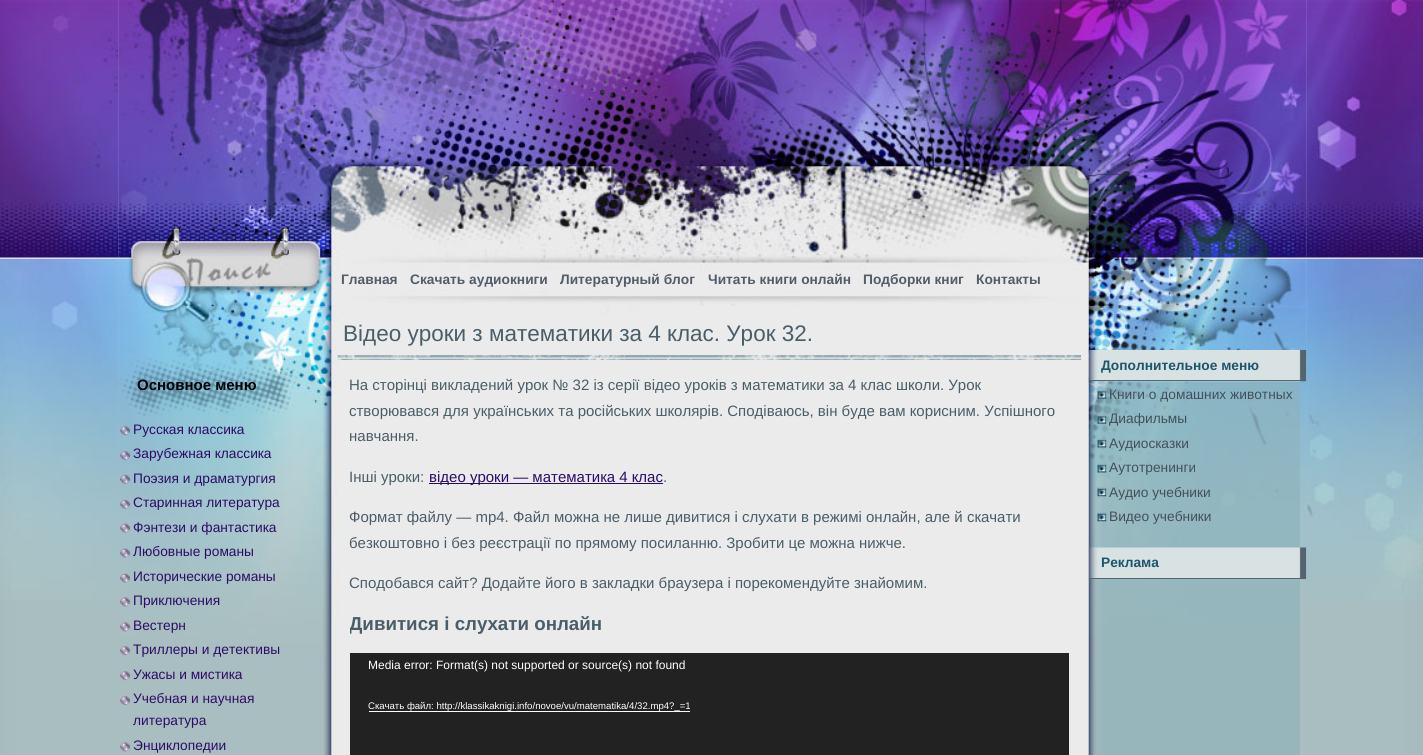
#include <cairo.h>
#include <math.h>
#include <stddef.h>

typedef struct { double x, y; const char *s; } line_t;

static void ink(cairo_t *ctx, unsigned color) {
    cairo_set_source_rgb(ctx, (color >> 16) / 255.0, (color >> 8 & 255) / 255.0, (color & 255) / 255.0);
}

static void paste(cairo_t *ctx, const char *path, double x, double y, double w, double h) {
    cairo_surface_t *image = cairo_image_surface_create_from_png(path);
    cairo_save(ctx);
    cairo_set_source_surface(ctx, image, x, y);
    cairo_rectangle(ctx, x, y, w, h);
    cairo_fill(ctx);
    cairo_restore(ctx);
    cairo_surface_destroy(image);
}

int main(void) {
    cairo_surface_t *surface = cairo_image_surface_create(CAIRO_FORMAT_RGB24, 1423, 755);
    cairo_t *ctx = cairo_create(surface);
    cairo_font_options_t *options = cairo_font_options_create();
    cairo_font_options_set_hint_metrics(options, CAIRO_HINT_METRICS_OFF);
    cairo_font_options_set_hint_style(options, CAIRO_HINT_STYLE_NONE);
    cairo_set_font_options(ctx, options);
    cairo_set_miter_limit(ctx, 4);
    ink(ctx, 0xFFFFFF);
    cairo_paint(ctx);
    paste(ctx, "media/1.png", 0, 600, 1423, 155);
    paste(ctx, "media/2.png", 0, 0, 1423, 600);
    paste(ctx, "media/3.png", 118, 0, 1189, 755);
    paste(ctx, "media/4.png", 118, 0, 1189, 307);
    paste(ctx, "media/5.png", 141, 256, 163, 51);
    cairo_select_font_face(ctx, "Liberation Sans", CAIRO_FONT_SLANT_NORMAL, CAIRO_FONT_WEIGHT_BOLD);
    cairo_set_font_size(ctx, 13.75);
    ink(ctx, 0x525C6A);
    {
        static const line_t items[] = {
            {341, 284, "Главная"},
            {410, 284, "Скачать аудиокниги"},
            {560, 284, "Литературный блог"},
            {708, 284, "Читать книги онлайн"},
            {863, 284, "Подборки книг"},
            {976, 284, "Контакты"},
        };
        for (size_t i = 0; i < sizeof items / sizeof *items; i++) {
            cairo_move_to(ctx, items[i].x, items[i].y);
            cairo_show_text(ctx, items[i].s);
        }
    }
    paste(ctx, "media/6.png", 119, 306, 1188, 375);
    paste(ctx, "media/7.png", 119, 358, 180, 58);
    cairo_set_font_size(ctx, 15);
    ink(ctx, 0x000000);
    cairo_move_to(ctx, 137, 390);
    cairo_show_text(ctx, "Основное меню");
    paste(ctx, "media/8.png", 120, 426, 11, 10);
    cairo_select_font_face(ctx, "Liberation Sans", CAIRO_FONT_SLANT_NORMAL, CAIRO_FONT_WEIGHT_NORMAL);
    cairo_set_font_size(ctx, 13.75);
    ink(ctx, 0x2D0C66);
    cairo_move_to(ctx, 133, 434);
    cairo_show_text(ctx, "Русская классика");
    paste(ctx, "media/9.png", 120, 451, 11, 10);
    cairo_move_to(ctx, 133, 458);
    cairo_show_text(ctx, "Зарубежная классика");
    paste(ctx, "media/10.png", 120, 474, 11, 10);
    cairo_move_to(ctx, 133, 483);
    cairo_show_text(ctx, "Поэзия и драматургия");
    paste(ctx, "media/11.png", 120, 499, 11, 10);
    cairo_move_to(ctx, 133, 507);
    cairo_show_text(ctx, "Старинная литература");
    paste(ctx, "media/12.png", 120, 523, 11, 10);
    cairo_move_to(ctx, 133, 532);
    cairo_show_text(ctx, "Фэнтези и фантастика");
    paste(ctx, "media/13.png", 120, 548, 11, 10);
    cairo_move_to(ctx, 133, 556);
    cairo_show_text(ctx, "Любовные романы");
    paste(ctx, "media/14.png", 120, 573, 11, 10);
    cairo_move_to(ctx, 133, 581);
    cairo_show_text(ctx, "Исторические романы");
    paste(ctx, "media/15.png", 120, 597, 11, 10);
    cairo_move_to(ctx, 133, 605);
    cairo_show_text(ctx, "Приключения");
    paste(ctx, "media/16.png", 120, 622, 11, 10);
    cairo_move_to(ctx, 133, 630);
    cairo_show_text(ctx, "Вестерн");
    paste(ctx, "media/17.png", 120, 646, 11, 10);
    cairo_move_to(ctx, 133, 654);
    cairo_show_text(ctx, "Триллеры и детективы");
    paste(ctx, "media/17.png", 120, 671, 11, 10);
    cairo_move_to(ctx, 133, 679);
    cairo_show_text(ctx, "Ужасы и мистика");
    paste(ctx, "media/17.png", 120, 696, 11, 10);
    cairo_move_to(ctx, 133, 703);
    cairo_show_text(ctx, "Учебная и научная");
    cairo_move_to(ctx, 133, 725);
    cairo_show_text(ctx, "литература");
    paste(ctx, "media/18.png", 120, 742, 11, 10);
    cairo_move_to(ctx, 133, 750);
    cairo_show_text(ctx, "Энциклопедии");
    paste(ctx, "media/19.png", 337, 355, 745, 5);
    cairo_set_font_size(ctx, 22.5);
    ink(ctx, 0x4A5E69);
    cairo_move_to(ctx, 343, 341);
    cairo_show_text(ctx, "Вiдео уроки з математики за 4 клас. Урок 32.");
    cairo_set_font_size(ctx, 15);
    {
        static const line_t items[] = {
            {349, 390, "На сторiнцi викладений урок № 32 iз серiї вiдео урокiв з математики за 4 клас школи. Урок"},
            {349, 416, "створювався для українських та росiйських школярiв. Сподiваюсь, вiн буде вам корисним. Успiшного"},
            {349, 441, "навчання."},
            {349, 482, "Iншi уроки:"},
        };
        for (size_t i = 0; i < sizeof items / sizeof *items; i++) {
            cairo_move_to(ctx, items[i].x, items[i].y);
            cairo_show_text(ctx, items[i].s);
        }
    }
    ink(ctx, 0x2D0C66);
    cairo_rectangle(ctx, 429, 483, 234, 1);
    cairo_fill(ctx);
    cairo_move_to(ctx, 429, 482);
    cairo_show_text(ctx, "відео уроки — математика 4 клас");
    ink(ctx, 0x4A5E69);
    {
        static const line_t items[] = {
            {663, 482, "."},
            {349, 522, "Формат файлу — mp4. Файл можна не лише дивитися i cлухати в режимi онлайн, але й скачати"},
            {349, 548, "безкоштовно i без реєстрації по прямому посиланню. Зробити це можна нижче."},
            {349, 588, "Сподобався сайт? Додайте його в закладки браузера i порекомендуйте знайомим."},
        };
        for (size_t i = 0; i < sizeof items / sizeof *items; i++) {
            cairo_move_to(ctx, items[i].x, items[i].y);
            cairo_show_text(ctx, items[i].s);
        }
    }
    cairo_save(ctx);
    cairo_rectangle(ctx, 350, 373, 719, 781);
    cairo_clip(ctx);
    cairo_select_font_face(ctx, "Liberation Sans", CAIRO_FONT_SLANT_NORMAL, CAIRO_FONT_WEIGHT_BOLD);
    cairo_set_font_size(ctx, 18.75);
    cairo_move_to(ctx, 349, 630);
    cairo_show_text(ctx, "Дивитися i слухати онлайн");
    cairo_restore(ctx);
    ink(ctx, 0x222222);
    cairo_rectangle(ctx, 350, 653, 719, 102);
    cairo_fill(ctx);
    cairo_set_font_size(ctx, 12);
    ink(ctx, 0xFFFFFF);
    cairo_move_to(ctx, 368, 669);
    cairo_show_text(ctx, "Media error: Format(s) not supported or source(s) not found");
    cairo_set_font_size(ctx, 9.6);
    cairo_move_to(ctx, 368, 709);
    cairo_show_text(ctx, "Скачать файл: http://klassikaknigi.info/novoe/vu/matematika/4/32.mp4?_=1");
    cairo_rectangle(ctx, 369, 711, 321, 1);
    cairo_fill(ctx);
    paste(ctx, "media/20.png", 1088, 350, 212, 405);
    paste(ctx, "media/21.png", 1088, 350, 219, 32);
    ink(ctx, 0x546471);
    cairo_rectangle(ctx, 1089, 380, 217, 1);
    cairo_fill(ctx);
    cairo_select_font_face(ctx, "Liberation Sans", CAIRO_FONT_SLANT_NORMAL, CAIRO_FONT_WEIGHT_BOLD);
    cairo_set_font_size(ctx, 13.75);
    ink(ctx, 0x1D566C);
    cairo_move_to(ctx, 1101, 370);
    cairo_show_text(ctx, "Дополнительное меню");
    paste(ctx, "media/22.png", 1097, 390, 10, 9);
    cairo_select_font_face(ctx, "Liberation Sans", CAIRO_FONT_SLANT_NORMAL, CAIRO_FONT_WEIGHT_NORMAL);
    ink(ctx, 0x435059);
    cairo_move_to(ctx, 1109, 399);
    cairo_show_text(ctx, "Книги о домашних животных");
    paste(ctx, "media/23.png", 1097, 415, 10, 9);
    cairo_move_to(ctx, 1109, 423);
    cairo_show_text(ctx, "Диафильмы");
    paste(ctx, "media/24.png", 1097, 438, 10, 10);
    cairo_move_to(ctx, 1109, 448);
    cairo_show_text(ctx, "Аудиосказки");
    paste(ctx, "media/25.png", 1097, 463, 10, 10);
    cairo_move_to(ctx, 1109, 472);
    cairo_show_text(ctx, "Аутотренинги");
    paste(ctx, "media/26.png", 1097, 487, 10, 10);
    cairo_move_to(ctx, 1109, 497);
    cairo_show_text(ctx, "Аудио учебники");
    paste(ctx, "media/27.png", 1097, 512, 10, 10);
    cairo_move_to(ctx, 1109, 521);
    cairo_show_text(ctx, "Видео учебники");
    paste(ctx, "media/28.png", 1088, 547, 219, 32);
    ink(ctx, 0x546471);
    cairo_rectangle(ctx, 1089, 578, 217, 1);
    cairo_fill(ctx);
    cairo_select_font_face(ctx, "Liberation Sans", CAIRO_FONT_SLANT_NORMAL, CAIRO_FONT_WEIGHT_BOLD);
    ink(ctx, 0x1D566C);
    cairo_move_to(ctx, 1101, 567);
    cairo_show_text(ctx, "Реклама");
    cairo_surface_write_to_png(surface, "image.png");
    cairo_font_options_destroy(options);
    cairo_destroy(ctx);
    cairo_surface_destroy(surface);
    return 0;
}
